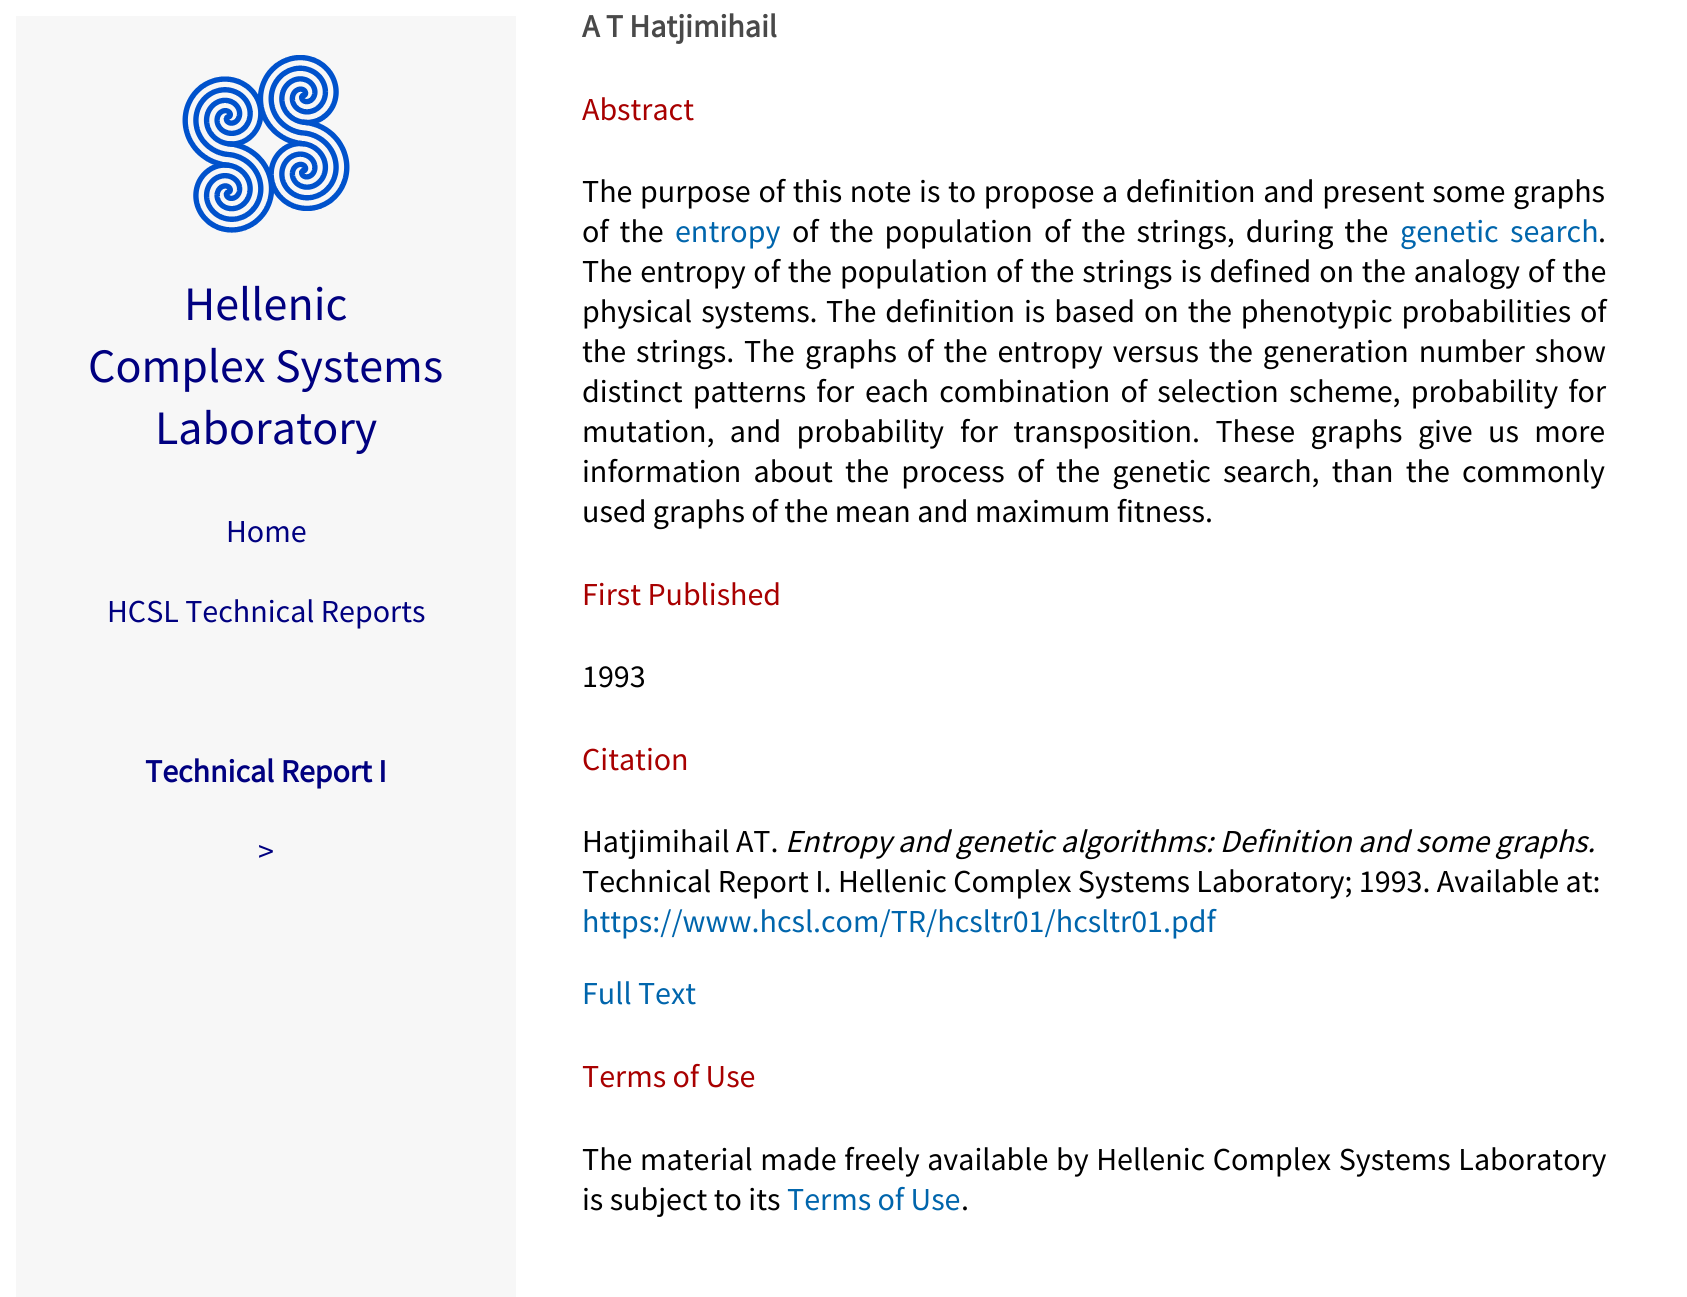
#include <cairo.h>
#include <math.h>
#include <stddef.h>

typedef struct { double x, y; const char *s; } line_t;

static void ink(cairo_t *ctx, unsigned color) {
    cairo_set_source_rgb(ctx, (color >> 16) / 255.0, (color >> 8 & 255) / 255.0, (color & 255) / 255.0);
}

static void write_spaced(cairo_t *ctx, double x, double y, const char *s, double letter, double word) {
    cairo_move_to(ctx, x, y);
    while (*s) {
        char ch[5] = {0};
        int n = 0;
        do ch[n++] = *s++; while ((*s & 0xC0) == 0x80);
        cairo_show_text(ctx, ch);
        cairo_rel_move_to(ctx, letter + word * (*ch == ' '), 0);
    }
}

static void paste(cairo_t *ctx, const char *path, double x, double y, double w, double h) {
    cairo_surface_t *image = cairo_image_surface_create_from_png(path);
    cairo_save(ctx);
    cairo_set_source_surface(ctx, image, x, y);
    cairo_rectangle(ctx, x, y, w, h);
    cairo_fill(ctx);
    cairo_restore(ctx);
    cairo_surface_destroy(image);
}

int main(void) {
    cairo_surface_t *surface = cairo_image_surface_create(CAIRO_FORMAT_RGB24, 1687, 1297);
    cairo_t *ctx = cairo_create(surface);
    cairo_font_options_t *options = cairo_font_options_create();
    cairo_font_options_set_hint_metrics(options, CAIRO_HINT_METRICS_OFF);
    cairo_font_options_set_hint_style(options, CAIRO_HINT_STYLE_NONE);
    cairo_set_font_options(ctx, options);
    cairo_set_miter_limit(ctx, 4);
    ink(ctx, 0xFFFFFF);
    cairo_paint(ctx);
    ink(ctx, 0xF7F7F7);
    cairo_rectangle(ctx, 16, 16, 500, 1281);
    cairo_fill(ctx);
    paste(ctx, "media/1.png", 182, 55, 168, 178);
    cairo_select_font_face(ctx, "Source Sans Pro", CAIRO_FONT_SLANT_NORMAL, CAIRO_FONT_WEIGHT_NORMAL);
    cairo_set_font_size(ctx, 48);
    ink(ctx, 0x000080);
    {
        static const line_t items[] = {
            {184, 320, "Hellenic"},
            {88, 382, "Complex Systems"},
            {155, 444, "Laboratory"},
        };
        for (size_t i = 0; i < sizeof items / sizeof *items; i++) {
            cairo_move_to(ctx, items[i].x, items[i].y);
            cairo_show_text(ctx, items[i].s);
        }
    }
    cairo_set_font_size(ctx, 32);
    cairo_move_to(ctx, 226, 542);
    cairo_show_text(ctx, "Home");
    cairo_move_to(ctx, 107, 622);
    cairo_show_text(ctx, "HCSL Technical Reports");
    cairo_select_font_face(ctx, "Source Sans Pro", CAIRO_FONT_SLANT_NORMAL, CAIRO_FONT_WEIGHT_BOLD);
    cairo_move_to(ctx, 145, 782);
    cairo_show_text(ctx, "Technical Report I");
    cairo_select_font_face(ctx, "Source Sans Pro", CAIRO_FONT_SLANT_NORMAL, CAIRO_FONT_WEIGHT_NORMAL);
    cairo_move_to(ctx, 258, 862);
    cairo_show_text(ctx, ">");
    cairo_select_font_face(ctx, "Source Sans Pro", CAIRO_FONT_SLANT_NORMAL, CAIRO_FONT_WEIGHT_BOLD);
    ink(ctx, 0x494949);
    cairo_move_to(ctx, 582, 37);
    cairo_show_text(ctx, "A T Hatjimihail");
    cairo_select_font_face(ctx, "Source Sans Pro", CAIRO_FONT_SLANT_NORMAL, CAIRO_FONT_WEIGHT_NORMAL);
    ink(ctx, 0xA80000);
    cairo_move_to(ctx, 582, 120);
    cairo_show_text(ctx, "Abstract");
    ink(ctx, 0x000000);
    write_spaced(ctx, 582, 202, "The purpose of this note is", 0, 1.25);
    write_spaced(ctx, 948, 202, "to propose a definition and present some graphs", 0, 1.25);
    write_spaced(ctx, 582, 242, "of the", 0, 4.5);
    ink(ctx, 0x0065AC);
    cairo_move_to(ctx, 675, 242);
    cairo_show_text(ctx, "entropy");
    ink(ctx, 0x000000);
    write_spaced(ctx, 792, 242, "of the population", 0, 4.5);
    write_spaced(ctx, 1044, 242, "of the strings, during the", 0, 4.5);
    ink(ctx, 0x0065AC);
    write_spaced(ctx, 1400, 242, "genetic search", 0, 5);
    ink(ctx, 0x000000);
    cairo_move_to(ctx, 1598, 242);
    cairo_show_text(ctx, ".");
    write_spaced(ctx, 582, 282, "The entropy of the", 0, 1.4);
    write_spaced(ctx, 840, 282, "population of the strings is defined on the analogy of the", 0, 1.4);
    write_spaced(ctx, 582, 322, "physical systems.", 0, 2.5);
    write_spaced(ctx, 826, 322, "The definition is based on the phenotypic probabilities of", 0, 2.5);
    write_spaced(ctx, 582, 362, "the strings. The", 0, 3.5);
    write_spaced(ctx, 805, 362, "graphs of the entropy versus the generation number show", 0, 3.5);
    write_spaced(ctx, 582, 402, "distinct patterns for", 0, 3.75);
    write_spaced(ctx, 865, 402, "each combination of selection scheme, probability for", 0, 3.75);
    write_spaced(ctx, 582, 442, "mutation, and probability", 0, 9);
    write_spaced(ctx, 960, 442, "for transposition. These graphs give us more", 0, 9);
    write_spaced(ctx, 582, 482, "information about the process of", 0, 5.75);
    write_spaced(ctx, 1056, 482, "the genetic search, than the commonly", 0, 5.75);
    cairo_move_to(ctx, 582, 522);
    cairo_show_text(ctx, "used graphs of the mean and maximum fitness.");
    ink(ctx, 0xA80000);
    cairo_move_to(ctx, 582, 605);
    cairo_show_text(ctx, "First Published");
    ink(ctx, 0x000000);
    cairo_move_to(ctx, 582, 687);
    cairo_show_text(ctx, "1993");
    ink(ctx, 0xA80000);
    cairo_move_to(ctx, 582, 770);
    cairo_show_text(ctx, "Citation");
    ink(ctx, 0x000000);
    cairo_move_to(ctx, 582, 852);
    cairo_show_text(ctx, "Hatjimihail AT.");
    cairo_select_font_face(ctx, "Source Sans Pro", CAIRO_FONT_SLANT_ITALIC, CAIRO_FONT_WEIGHT_NORMAL);
    cairo_move_to(ctx, 785, 852);
    cairo_show_text(ctx, "Entropy and genetic algorithms: Definition and some graphs.");
    cairo_select_font_face(ctx, "Source Sans Pro", CAIRO_FONT_SLANT_NORMAL, CAIRO_FONT_WEIGHT_NORMAL);
    cairo_move_to(ctx, 582, 892);
    cairo_show_text(ctx, "Technical Report I. Hellenic Complex Systems Laboratory; 1993. Available at:");
    ink(ctx, 0x0065AC);
    cairo_move_to(ctx, 582, 932);
    cairo_show_text(ctx, "https://www.hcsl.com/TR/hcsltr01/hcsltr01.pdf");
    cairo_move_to(ctx, 582, 1004);
    cairo_show_text(ctx, "Full Text");
    ink(ctx, 0xA80000);
    cairo_move_to(ctx, 582, 1087);
    cairo_show_text(ctx, "Terms of Use");
    ink(ctx, 0x000000);
    write_spaced(ctx, 582, 1170, "The material made freely available by Hellenic Complex Systems Laboratory", 0, 1.25);
    cairo_move_to(ctx, 582, 1210);
    cairo_show_text(ctx, "is subject to its");
    ink(ctx, 0x0065AC);
    cairo_move_to(ctx, 787, 1210);
    cairo_show_text(ctx, "Terms of Use");
    ink(ctx, 0x000000);
    cairo_move_to(ctx, 961, 1210);
    cairo_show_text(ctx, ".");
    cairo_surface_write_to_png(surface, "image.png");
    cairo_font_options_destroy(options);
    cairo_destroy(ctx);
    cairo_surface_destroy(surface);
    return 0;
}
